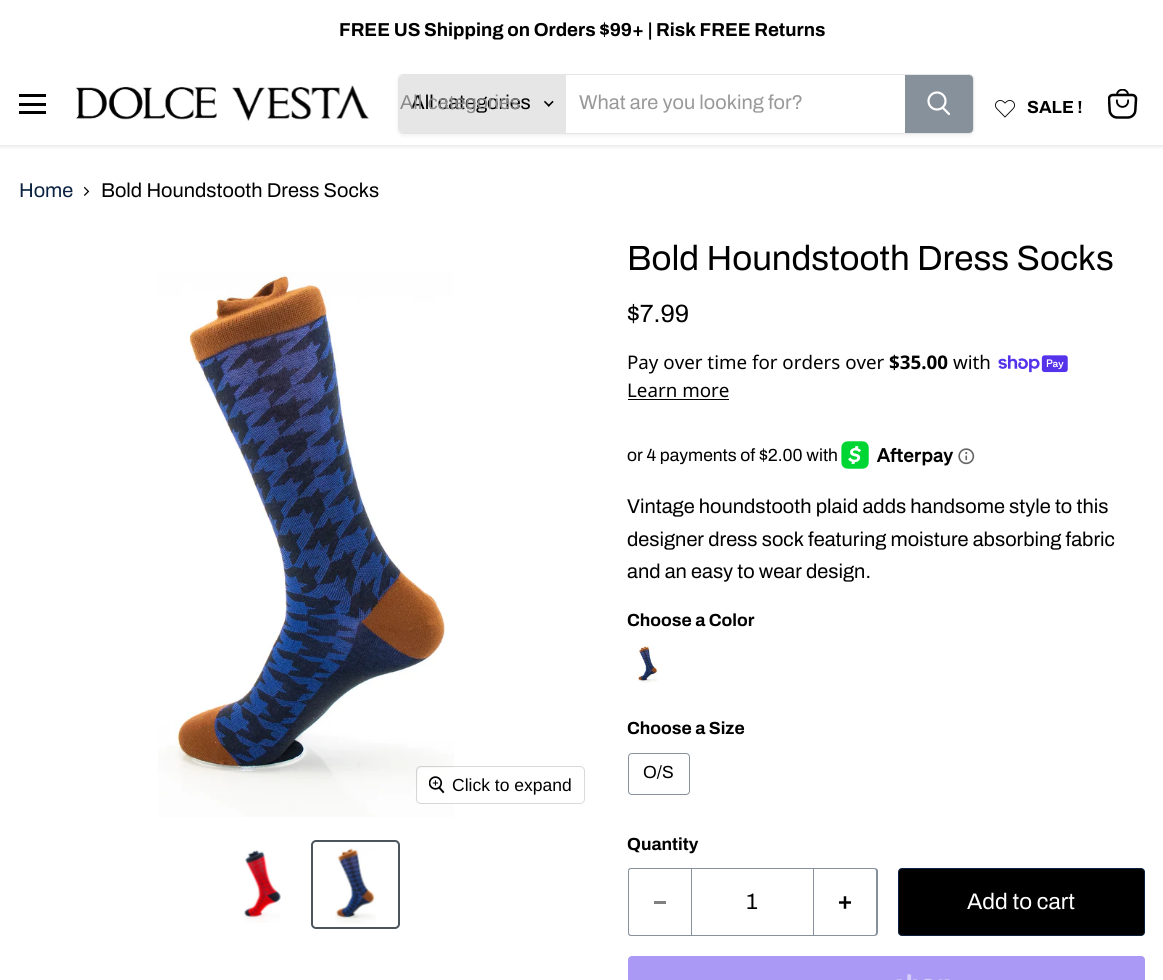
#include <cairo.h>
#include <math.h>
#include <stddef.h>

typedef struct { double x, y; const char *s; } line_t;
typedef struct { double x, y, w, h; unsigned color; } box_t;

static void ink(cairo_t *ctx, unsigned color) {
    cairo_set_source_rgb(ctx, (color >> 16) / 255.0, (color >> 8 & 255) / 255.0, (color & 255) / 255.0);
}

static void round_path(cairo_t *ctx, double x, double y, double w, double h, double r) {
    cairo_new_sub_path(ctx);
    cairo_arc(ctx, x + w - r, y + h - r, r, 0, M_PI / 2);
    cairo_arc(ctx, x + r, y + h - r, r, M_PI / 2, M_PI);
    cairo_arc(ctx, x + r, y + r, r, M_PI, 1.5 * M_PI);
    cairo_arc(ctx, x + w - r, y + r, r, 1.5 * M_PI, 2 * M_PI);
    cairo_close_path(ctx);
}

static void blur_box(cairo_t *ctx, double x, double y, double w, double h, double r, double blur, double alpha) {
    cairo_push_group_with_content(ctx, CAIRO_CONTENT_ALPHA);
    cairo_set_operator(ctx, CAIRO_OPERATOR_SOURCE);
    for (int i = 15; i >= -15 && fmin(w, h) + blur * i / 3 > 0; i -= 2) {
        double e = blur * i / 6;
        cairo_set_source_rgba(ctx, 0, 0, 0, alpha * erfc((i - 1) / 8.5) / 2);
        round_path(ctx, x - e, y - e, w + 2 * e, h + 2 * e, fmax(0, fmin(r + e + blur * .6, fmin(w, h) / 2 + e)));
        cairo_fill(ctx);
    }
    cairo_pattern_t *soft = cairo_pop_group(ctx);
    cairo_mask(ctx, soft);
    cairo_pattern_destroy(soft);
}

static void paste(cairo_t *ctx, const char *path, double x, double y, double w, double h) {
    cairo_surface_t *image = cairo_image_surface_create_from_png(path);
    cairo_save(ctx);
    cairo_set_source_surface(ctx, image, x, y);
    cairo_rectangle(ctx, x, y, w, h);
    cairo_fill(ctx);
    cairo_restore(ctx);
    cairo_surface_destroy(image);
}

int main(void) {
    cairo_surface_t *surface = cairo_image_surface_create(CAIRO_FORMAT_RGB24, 1163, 980);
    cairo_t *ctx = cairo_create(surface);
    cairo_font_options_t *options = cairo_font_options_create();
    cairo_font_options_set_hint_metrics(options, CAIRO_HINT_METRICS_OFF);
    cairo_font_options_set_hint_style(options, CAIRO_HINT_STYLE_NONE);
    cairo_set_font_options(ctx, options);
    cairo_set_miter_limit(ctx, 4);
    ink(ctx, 0xFFFFFF);
    cairo_paint(ctx);
    cairo_save(ctx);
    cairo_rectangle(ctx, 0, 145, 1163, 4);
    cairo_clip(ctx);
    ink(ctx, 0x808080);
    blur_box(ctx, 0, 64, 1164, 82, 0, 2.5, 0.25);
    cairo_restore(ctx);
    ink(ctx, 0xFFFFFF);
    cairo_rectangle(ctx, 0, 61, 1163, 2);
    cairo_fill(ctx);
    cairo_select_font_face(ctx, "Archivo", CAIRO_FONT_SLANT_NORMAL, CAIRO_FONT_WEIGHT_BOLD);
    cairo_set_font_size(ctx, 18.75);
    ink(ctx, 0x000000);
    cairo_move_to(ctx, 339, 36);
    cairo_show_text(ctx, "FREE US Shipping on Orders $99+ | Risk FREE Returns");
    {
        static const box_t items[] = {
            {19, 94, 27, 3, 0x000000},
            {19, 103, 27, 3, 0x000000},
            {19, 111, 27, 3, 0x000000},
        };
        for (size_t i = 0; i < sizeof items / sizeof *items; i++) {
            ink(ctx, items[i].color);
            cairo_rectangle(ctx, items[i].x, items[i].y, items[i].w, items[i].h);
            cairo_fill(ctx);
        }
    }
    paste(ctx, "media/1.png", 75, 85, 294, 36);
    cairo_save(ctx);
    cairo_set_fill_rule(ctx, CAIRO_FILL_RULE_EVEN_ODD);
    cairo_new_path(ctx);
    cairo_move_to(ctx, 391, 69);
    cairo_line_to(ctx, 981, 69);
    cairo_line_to(ctx, 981, 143);
    cairo_line_to(ctx, 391, 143);
    cairo_close_path(ctx);
    cairo_move_to(ctx, 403, 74);
    cairo_line_to(ctx, 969, 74);
    cairo_curve_to(ctx, 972, 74, 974, 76, 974, 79);
    cairo_line_to(ctx, 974, 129);
    cairo_curve_to(ctx, 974, 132, 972, 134, 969, 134);
    cairo_line_to(ctx, 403, 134);
    cairo_curve_to(ctx, 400, 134, 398, 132, 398, 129);
    cairo_line_to(ctx, 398, 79);
    cairo_curve_to(ctx, 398, 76, 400, 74, 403, 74);
    cairo_close_path(ctx);
    cairo_clip(ctx);
    ink(ctx, 0x808080);
    blur_box(ctx, 398, 76, 576, 60, 5, 2, 0.11);
    cairo_restore(ctx);
    round_path(ctx, 398.5, 74.5, 575, 59, 4.5);
    cairo_set_source_rgba(ctx, 0.502, 0.502, 0.502, 0.2);
    cairo_set_line_width(ctx, 1);
    cairo_stroke(ctx);
    ink(ctx, 0xE6E6E6);
    cairo_new_path(ctx);
    cairo_move_to(ctx, 403, 75);
    cairo_line_to(ctx, 566, 75);
    cairo_line_to(ctx, 566, 133);
    cairo_line_to(ctx, 403, 133);
    cairo_curve_to(ctx, 401, 133, 399, 131, 399, 129);
    cairo_line_to(ctx, 399, 79);
    cairo_curve_to(ctx, 399, 77, 401, 75, 403, 75);
    cairo_close_path(ctx);
    cairo_fill(ctx);
    cairo_select_font_face(ctx, "Archivo", CAIRO_FONT_SLANT_NORMAL, CAIRO_FONT_WEIGHT_NORMAL);
    cairo_set_font_size(ctx, 20);
    ink(ctx, 0x000000);
    cairo_move_to(ctx, 411, 109);
    cairo_show_text(ctx, "All categories");
    cairo_select_font_face(ctx, "Liberation Sans", CAIRO_FONT_SLANT_NORMAL, CAIRO_FONT_WEIGHT_NORMAL);
    ink(ctx, 0x898989);
    cairo_move_to(ctx, 400, 109);
    cairo_show_text(ctx, "All categories");
    paste(ctx, "media/2.png", 544, 100, 10, 7);
    cairo_select_font_face(ctx, "Archivo", CAIRO_FONT_SLANT_NORMAL, CAIRO_FONT_WEIGHT_NORMAL);
    ink(ctx, 0x999999);
    cairo_move_to(ctx, 579, 109);
    cairo_show_text(ctx, "What are you looking for?");
    ink(ctx, 0x87919C);
    cairo_new_path(ctx);
    cairo_move_to(ctx, 905.5, 75.5);
    cairo_line_to(ctx, 969, 75.5);
    cairo_curve_to(ctx, 971, 75.5, 972.5, 77, 972.5, 79);
    cairo_line_to(ctx, 972.5, 129);
    cairo_curve_to(ctx, 972.5, 131, 971, 132.5, 969, 132.5);
    cairo_line_to(ctx, 905.5, 132.5);
    cairo_close_path(ctx);
    cairo_fill_preserve(ctx);
    cairo_stroke(ctx);
    cairo_new_path(ctx);
    cairo_move_to(ctx, 949, 114);
    cairo_line_to(ctx, 943, 108);
    ink(ctx, 0xFFFFFF);
    cairo_set_line_width(ctx, 2.2);
    cairo_set_line_cap(ctx, CAIRO_LINE_CAP_ROUND);
    cairo_stroke(ctx);
    cairo_arc(ctx, 937, 101, 8.5, 0, 2 * M_PI);
    cairo_set_line_cap(ctx, CAIRO_LINE_CAP_BUTT);
    cairo_stroke(ctx);
    paste(ctx, "media/3.png", 995, 100, 20, 18);
    cairo_select_font_face(ctx, "Archivo", CAIRO_FONT_SLANT_NORMAL, CAIRO_FONT_WEIGHT_BOLD);
    cairo_set_font_size(ctx, 17.5);
    ink(ctx, 0x000000);
    cairo_move_to(ctx, 1027, 113);
    cairo_show_text(ctx, "SALE !");
    paste(ctx, "media/4.png", 1108, 89, 30, 30);
    cairo_select_font_face(ctx, "Archivo", CAIRO_FONT_SLANT_NORMAL, CAIRO_FONT_WEIGHT_NORMAL);
    cairo_set_font_size(ctx, 20);
    ink(ctx, 0x0A2240);
    cairo_move_to(ctx, 19, 197);
    cairo_show_text(ctx, "Home");
    paste(ctx, "media/5.png", 84, 186, 6, 10);
    ink(ctx, 0x000000);
    cairo_move_to(ctx, 101, 197);
    cairo_show_text(ctx, "Bold Houndstooth Dress Socks");
    paste(ctx, "media/6.png", 158, 272, 296, 545);
    round_path(ctx, 416.5, 766.5, 168, 37, 4.5);
    cairo_set_source_rgba(ctx, 0, 0, 0, 0.15);
    cairo_set_line_width(ctx, 1);
    cairo_stroke(ctx);
    cairo_set_source_rgba(ctx, 1, 1, 1, 0.9);
    round_path(ctx, 418, 768, 166, 35, 4);
    cairo_fill(ctx);
    paste(ctx, "media/7.png", 429, 776, 16, 18);
    cairo_select_font_face(ctx, "Liberation Sans", CAIRO_FONT_SLANT_NORMAL, CAIRO_FONT_WEIGHT_NORMAL);
    cairo_set_font_size(ctx, 17.5);
    ink(ctx, 0x000000);
    cairo_move_to(ctx, 452, 791);
    cairo_show_text(ctx, "Click to expand");
    paste(ctx, "media/8.png", 243, 850, 38, 73);
    round_path(ctx, 312, 841, 87, 87, 4);
    ink(ctx, 0x4C545C);
    cairo_set_line_width(ctx, 2);
    cairo_stroke(ctx);
    paste(ctx, "media/9.png", 335, 846, 41, 78);
    cairo_select_font_face(ctx, "Archivo", CAIRO_FONT_SLANT_NORMAL, CAIRO_FONT_WEIGHT_NORMAL);
    cairo_set_font_size(ctx, 35);
    ink(ctx, 0x000000);
    cairo_move_to(ctx, 627, 270);
    cairo_show_text(ctx, "Bold Houndstooth Dress Socks");
    cairo_set_font_size(ctx, 25);
    cairo_move_to(ctx, 627, 322);
    cairo_show_text(ctx, "$7.99");
    cairo_select_font_face(ctx, "Noto Sans", CAIRO_FONT_SLANT_NORMAL, CAIRO_FONT_WEIGHT_NORMAL);
    cairo_set_font_size(ctx, 18.75);
    cairo_move_to(ctx, 627, 369);
    cairo_show_text(ctx, "Pay over time for orders over");
    cairo_select_font_face(ctx, "Noto Sans", CAIRO_FONT_SLANT_NORMAL, CAIRO_FONT_WEIGHT_BOLD);
    cairo_move_to(ctx, 889, 369);
    cairo_show_text(ctx, "$35.00");
    cairo_select_font_face(ctx, "Noto Sans", CAIRO_FONT_SLANT_NORMAL, CAIRO_FONT_WEIGHT_NORMAL);
    cairo_move_to(ctx, 953, 369);
    cairo_show_text(ctx, "with");
    paste(ctx, "media/10.png", 998, 355, 70, 18);
    cairo_move_to(ctx, 627, 397);
    cairo_show_text(ctx, "Learn more");
    cairo_rectangle(ctx, 628, 399, 101, 1);
    cairo_fill(ctx);
    cairo_select_font_face(ctx, "Archivo", CAIRO_FONT_SLANT_NORMAL, CAIRO_FONT_WEIGHT_NORMAL);
    cairo_set_font_size(ctx, 17.5);
    cairo_move_to(ctx, 627, 461);
    cairo_show_text(ctx, "or 4 payments of $2.00 with");
    paste(ctx, "media/11.png", 841, 441, 112, 28);
    paste(ctx, "media/12.png", 958, 448, 17, 17);
    cairo_set_font_size(ctx, 20);
    {
        static const line_t items[] = {
            {627, 513, "Vintage houndstooth plaid adds handsome style to this"},
            {627, 546, "designer dress sock featuring moisture absorbing fabric"},
            {627, 578, "and an easy to wear design."},
        };
        for (size_t i = 0; i < sizeof items / sizeof *items; i++) {
            cairo_move_to(ctx, items[i].x, items[i].y);
            cairo_show_text(ctx, items[i].s);
        }
    }
    cairo_select_font_face(ctx, "Archivo", CAIRO_FONT_SLANT_NORMAL, CAIRO_FONT_WEIGHT_BOLD);
    cairo_set_font_size(ctx, 17.5);
    cairo_move_to(ctx, 627, 626);
    cairo_show_text(ctx, "Choose a Color");
    paste(ctx, "media/13.png", 637, 645, 21, 38);
    cairo_move_to(ctx, 627, 734);
    cairo_show_text(ctx, "Choose a Size");
    round_path(ctx, 628.5, 753.5, 61, 41, 3.5);
    ink(ctx, 0x87919C);
    cairo_set_line_width(ctx, 1);
    cairo_stroke(ctx);
    cairo_select_font_face(ctx, "Archivo", CAIRO_FONT_SLANT_NORMAL, CAIRO_FONT_WEIGHT_NORMAL);
    ink(ctx, 0x000000);
    cairo_move_to(ctx, 643, 778);
    cairo_show_text(ctx, "O/S");
    cairo_select_font_face(ctx, "Archivo", CAIRO_FONT_SLANT_NORMAL, CAIRO_FONT_WEIGHT_BOLD);
    cairo_move_to(ctx, 627, 850);
    cairo_show_text(ctx, "Quantity");
    ink(ctx, 0x87919C);
    cairo_set_fill_rule(ctx, CAIRO_FILL_RULE_EVEN_ODD);
    cairo_new_path(ctx);
    cairo_move_to(ctx, 631, 868);
    cairo_line_to(ctx, 691, 868);
    cairo_line_to(ctx, 691, 936);
    cairo_line_to(ctx, 631, 936);
    cairo_curve_to(ctx, 629, 936, 628, 935, 628, 932);
    cairo_line_to(ctx, 628, 871);
    cairo_curve_to(ctx, 628, 869, 629, 868, 631, 868);
    cairo_close_path(ctx);
    cairo_move_to(ctx, 631, 869);
    cairo_line_to(ctx, 691, 869);
    cairo_line_to(ctx, 691, 935);
    cairo_line_to(ctx, 631, 935);
    cairo_curve_to(ctx, 630, 935, 629, 934, 629, 932);
    cairo_line_to(ctx, 629, 871);
    cairo_curve_to(ctx, 629, 870, 630, 869, 631, 869);
    cairo_close_path(ctx);
    cairo_fill(ctx);
    ink(ctx, 0x808080);
    cairo_rectangle(ctx, 654, 901, 12, 3);
    cairo_fill(ctx);
    cairo_rectangle(ctx, 691.5, 868.5, 122, 67);
    ink(ctx, 0x87919C);
    cairo_stroke(ctx);
    cairo_select_font_face(ctx, "Archivo", CAIRO_FONT_SLANT_NORMAL, CAIRO_FONT_WEIGHT_NORMAL);
    cairo_set_font_size(ctx, 22.5);
    ink(ctx, 0x000000);
    cairo_move_to(ctx, 746, 909);
    cairo_show_text(ctx, "1");
    ink(ctx, 0x87919C);
    cairo_new_path(ctx);
    cairo_move_to(ctx, 814, 868);
    cairo_line_to(ctx, 874, 868);
    cairo_curve_to(ctx, 876, 868, 878, 869, 878, 871);
    cairo_line_to(ctx, 878, 932);
    cairo_curve_to(ctx, 878, 935, 876, 936, 874, 936);
    cairo_line_to(ctx, 814, 936);
    cairo_close_path(ctx);
    cairo_move_to(ctx, 814, 869);
    cairo_line_to(ctx, 874, 869);
    cairo_curve_to(ctx, 875, 869, 876, 870, 876, 871);
    cairo_line_to(ctx, 876, 932);
    cairo_curve_to(ctx, 876, 934, 875, 935, 874, 935);
    cairo_line_to(ctx, 814, 935);
    cairo_close_path(ctx);
    cairo_fill(ctx);
    paste(ctx, "media/14.png", 839, 896, 12, 13);
    ink(ctx, 0x000000);
    round_path(ctx, 898.5, 868.5, 246, 67, 3.5);
    cairo_fill_preserve(ctx);
    ink(ctx, 0x0A2240);
    cairo_stroke(ctx);
    ink(ctx, 0xFFFFFF);
    cairo_move_to(ctx, 967, 909);
    cairo_show_text(ctx, "Add to cart");
    ink(ctx, 0xAA99F5);
    round_path(ctx, 628, 956, 517, 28, 4);
    cairo_fill(ctx);
    paste(ctx, "media/15.png", 896, 974, 54, 6);
    cairo_surface_write_to_png(surface, "image.png");
    cairo_font_options_destroy(options);
    cairo_destroy(ctx);
    cairo_surface_destroy(surface);
    return 0;
}
